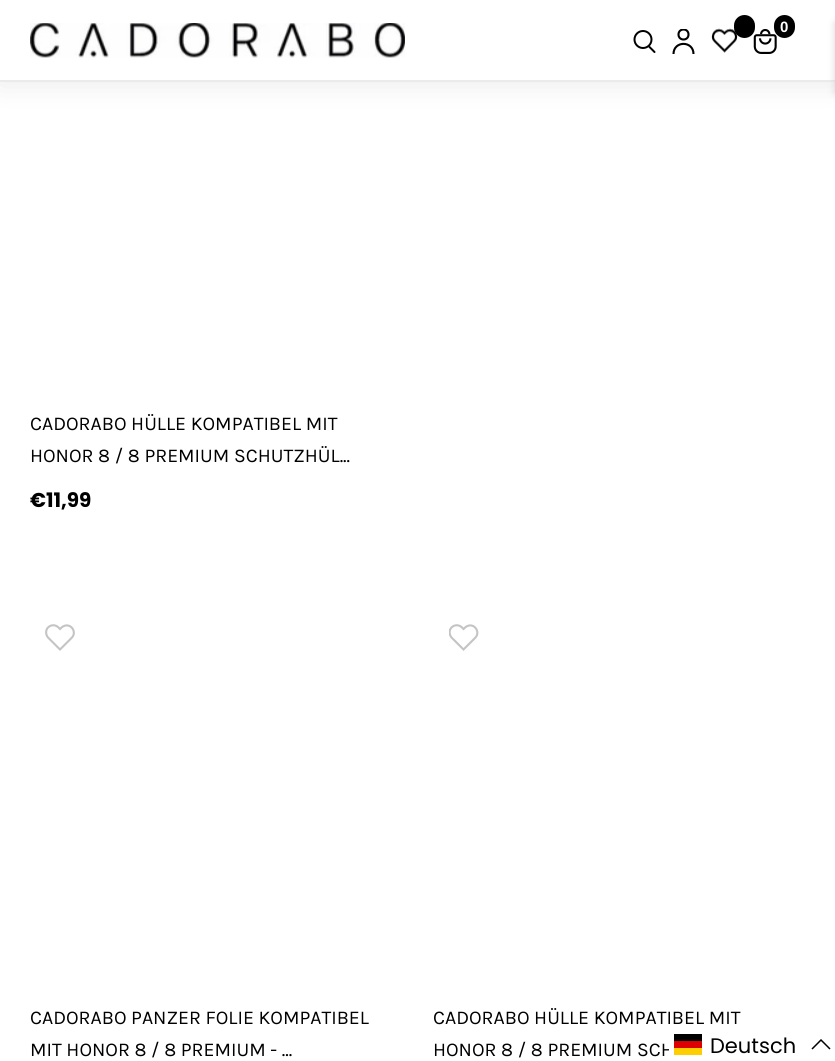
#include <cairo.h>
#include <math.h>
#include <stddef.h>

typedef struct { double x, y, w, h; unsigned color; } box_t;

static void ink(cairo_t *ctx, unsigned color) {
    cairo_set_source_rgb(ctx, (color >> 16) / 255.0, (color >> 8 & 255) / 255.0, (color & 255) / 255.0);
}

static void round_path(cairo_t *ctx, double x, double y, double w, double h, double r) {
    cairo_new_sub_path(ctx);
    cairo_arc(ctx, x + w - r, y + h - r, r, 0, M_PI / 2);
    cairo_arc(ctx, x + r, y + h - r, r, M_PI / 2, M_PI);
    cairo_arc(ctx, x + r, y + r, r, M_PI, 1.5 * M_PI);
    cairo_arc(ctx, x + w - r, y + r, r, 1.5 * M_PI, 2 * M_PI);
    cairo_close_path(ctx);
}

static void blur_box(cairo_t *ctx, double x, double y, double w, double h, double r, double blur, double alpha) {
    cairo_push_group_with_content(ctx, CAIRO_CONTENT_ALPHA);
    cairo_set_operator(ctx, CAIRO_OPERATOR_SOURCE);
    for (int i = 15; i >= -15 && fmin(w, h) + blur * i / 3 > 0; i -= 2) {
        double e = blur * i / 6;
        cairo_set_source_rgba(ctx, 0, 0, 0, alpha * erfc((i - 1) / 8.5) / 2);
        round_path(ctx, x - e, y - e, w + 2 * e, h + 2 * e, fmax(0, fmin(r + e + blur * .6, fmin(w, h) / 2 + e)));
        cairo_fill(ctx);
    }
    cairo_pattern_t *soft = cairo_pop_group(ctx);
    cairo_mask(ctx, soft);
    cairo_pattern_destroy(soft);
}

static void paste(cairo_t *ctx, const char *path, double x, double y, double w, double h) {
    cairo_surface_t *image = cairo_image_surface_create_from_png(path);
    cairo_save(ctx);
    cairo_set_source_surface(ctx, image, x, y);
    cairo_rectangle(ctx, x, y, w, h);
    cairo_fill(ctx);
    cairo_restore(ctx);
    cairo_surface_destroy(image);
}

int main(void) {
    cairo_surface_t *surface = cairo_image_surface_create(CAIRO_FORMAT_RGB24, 835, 1061);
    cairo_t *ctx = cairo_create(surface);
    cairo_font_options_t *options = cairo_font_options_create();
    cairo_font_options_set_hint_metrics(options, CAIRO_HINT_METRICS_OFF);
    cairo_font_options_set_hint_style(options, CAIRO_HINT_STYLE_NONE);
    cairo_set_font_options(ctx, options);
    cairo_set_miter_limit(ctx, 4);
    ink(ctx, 0xFFFFFF);
    cairo_paint(ctx);
    ink(ctx, 0x000000);
    blur_box(ctx, 0, 0, 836, 81, 0, 15, 0.1);
    ink(ctx, 0xFFFFFF);
    cairo_rectangle(ctx, 0, 0, 835, 80);
    cairo_fill(ctx);
    ink(ctx, 0xEBEBEB);
    cairo_rectangle(ctx, 0, 80, 835, 2);
    cairo_fill(ctx);
    paste(ctx, "media/1.png", 30, 23, 375, 35);
    paste(ctx, "media/2.png", 711, 28, 27, 25);
    ink(ctx, 0x000000);
    round_path(ctx, 734, 15, 21, 23, 10.5);
    cairo_fill(ctx);
    paste(ctx, "media/3.png", 753, 29, 24, 25);
    round_path(ctx, 774, 15, 21, 23, 10.5);
    cairo_fill(ctx);
    cairo_select_font_face(ctx, "Liberation Sans", CAIRO_FONT_SLANT_NORMAL, CAIRO_FONT_WEIGHT_BOLD);
    cairo_set_font_size(ctx, 15);
    ink(ctx, 0xFFFFFF);
    cairo_move_to(ctx, 780, 32);
    cairo_show_text(ctx, "0");
    cairo_new_path(ctx);
    cairo_arc(ctx, 643, 39.5, 8.5, 0, 2 * M_PI);
    ink(ctx, 0x000000);
    cairo_stroke(ctx);
    cairo_new_path(ctx);
    cairo_move_to(ctx, 649.5, 47);
    cairo_line_to(ctx, 654.5, 52);
    cairo_set_line_cap(ctx, CAIRO_LINE_CAP_ROUND);
    cairo_stroke(ctx);
    cairo_save(ctx);
    cairo_rectangle(ctx, 671, 29, 25, 25);
    cairo_clip(ctx);
    cairo_arc(ctx, 683.5, 34.5, 5, 0, 2 * M_PI);
    cairo_set_line_width(ctx, 2.1);
    cairo_set_line_cap(ctx, CAIRO_LINE_CAP_BUTT);
    cairo_stroke(ctx);
    cairo_restore(ctx);
    cairo_new_path(ctx);
    cairo_move_to(ctx, 693.5, 54);
    cairo_curve_to(ctx, 693.5, 40.5, 673.5, 40.5, 673.5, 54);
    cairo_set_line_width(ctx, 2.1);
    cairo_set_line_cap(ctx, CAIRO_LINE_CAP_BUTT);
    cairo_stroke(ctx);
    ink(ctx, 0xCCCCCC);
    blur_box(ctx, 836, 23, 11, 70, 0, 4, 1);
    cairo_select_font_face(ctx, "Karla", CAIRO_FONT_SLANT_NORMAL, CAIRO_FONT_WEIGHT_NORMAL);
    cairo_set_font_size(ctx, 19.5);
    ink(ctx, 0x000000);
    cairo_move_to(ctx, 30, 430);
    cairo_show_text(ctx, "CADORABO HÜLLE KOMPATIBEL MIT");
    cairo_move_to(ctx, 30, 462);
    cairo_show_text(ctx, "HONOR 8 / 8 PREMIUM SCHUTZHÜL...");
    cairo_select_font_face(ctx, "Poppins", CAIRO_FONT_SLANT_NORMAL, CAIRO_FONT_WEIGHT_BOLD);
    cairo_set_font_size(ctx, 20);
    cairo_move_to(ctx, 30, 507);
    cairo_show_text(ctx, "€11,99");
    cairo_new_path(ctx);
    cairo_move_to(ctx, 72, 637.5);
    cairo_line_to(ctx, 60, 649.5);
    cairo_line_to(ctx, 48, 637.5);
    cairo_curve_to(ctx, 45.5, 634.5, 45.5, 630, 48, 627.5);
    cairo_curve_to(ctx, 51, 624.5, 55.5, 624.5, 58.5, 627.5);
    cairo_line_to(ctx, 60, 629);
    cairo_curve_to(ctx, 61, 628, 62.5, 626.5, 64, 626);
    cairo_curve_to(ctx, 71, 623, 77, 632, 72, 637.5);
    cairo_close_path(ctx);
    ink(ctx, 0xC4C4C4);
    cairo_stroke(ctx);
    cairo_select_font_face(ctx, "Karla", CAIRO_FONT_SLANT_NORMAL, CAIRO_FONT_WEIGHT_NORMAL);
    cairo_set_font_size(ctx, 19.5);
    ink(ctx, 0x000000);
    cairo_move_to(ctx, 30, 1024);
    cairo_show_text(ctx, "CADORABO PANZER FOLIE KOMPATIBEL");
    cairo_move_to(ctx, 30, 1056);
    cairo_show_text(ctx, "MIT HONOR 8 / 8 PREMIUM - ...");
    cairo_save(ctx);
    cairo_rectangle(ctx, 449, 623, 30, 30);
    cairo_clip(ctx);
    cairo_new_path(ctx);
    cairo_move_to(ctx, 475.5, 637.5);
    cairo_line_to(ctx, 463.5, 649.5);
    cairo_line_to(ctx, 451.5, 637.5);
    cairo_curve_to(ctx, 449, 634.5, 449, 630, 451.5, 627.5);
    cairo_curve_to(ctx, 454.5, 624.5, 459, 624.5, 462, 627.5);
    cairo_line_to(ctx, 463.5, 629);
    cairo_curve_to(ctx, 464.5, 628, 466, 626.5, 467.5, 626);
    cairo_curve_to(ctx, 474.5, 623, 480.5, 632, 475.5, 637.5);
    cairo_close_path(ctx);
    ink(ctx, 0xC4C4C4);
    cairo_stroke(ctx);
    cairo_restore(ctx);
    cairo_move_to(ctx, 433, 1024);
    cairo_show_text(ctx, "CADORABO HÜLLE KOMPATIBEL MIT");
    cairo_move_to(ctx, 433, 1056);
    cairo_show_text(ctx, "HONOR 8 / 8 PREMIUM SCH");
    {
        static const box_t items[] = {
            {669, 1043, 3, 13, 0xFFFFFF},
            {674, 1048, 28, 7, 0xFFCE00},
            {674, 1034, 28, 7, 0x000000},
            {674, 1041, 28, 7, 0xDD0000},
        };
        for (size_t i = 0; i < sizeof items / sizeof *items; i++) {
            ink(ctx, items[i].color);
            cairo_rectangle(ctx, items[i].x, items[i].y, items[i].w, items[i].h);
            cairo_fill(ctx);
        }
    }
    cairo_select_font_face(ctx, "Poppins", CAIRO_FONT_SLANT_NORMAL, CAIRO_FONT_WEIGHT_NORMAL);
    cairo_set_font_size(ctx, 21);
    ink(ctx, 0x000000);
    cairo_move_to(ctx, 710, 1053);
    cairo_show_text(ctx, "Deutsch");
    cairo_new_path(ctx);
    cairo_move_to(ctx, 830, 1049);
    cairo_line_to(ctx, 821, 1040);
    cairo_line_to(ctx, 812, 1049);
    cairo_set_line_width(ctx, 1.5);
    cairo_stroke(ctx);
    cairo_surface_write_to_png(surface, "image.png");
    cairo_font_options_destroy(options);
    cairo_destroy(ctx);
    cairo_surface_destroy(surface);
    return 0;
}
